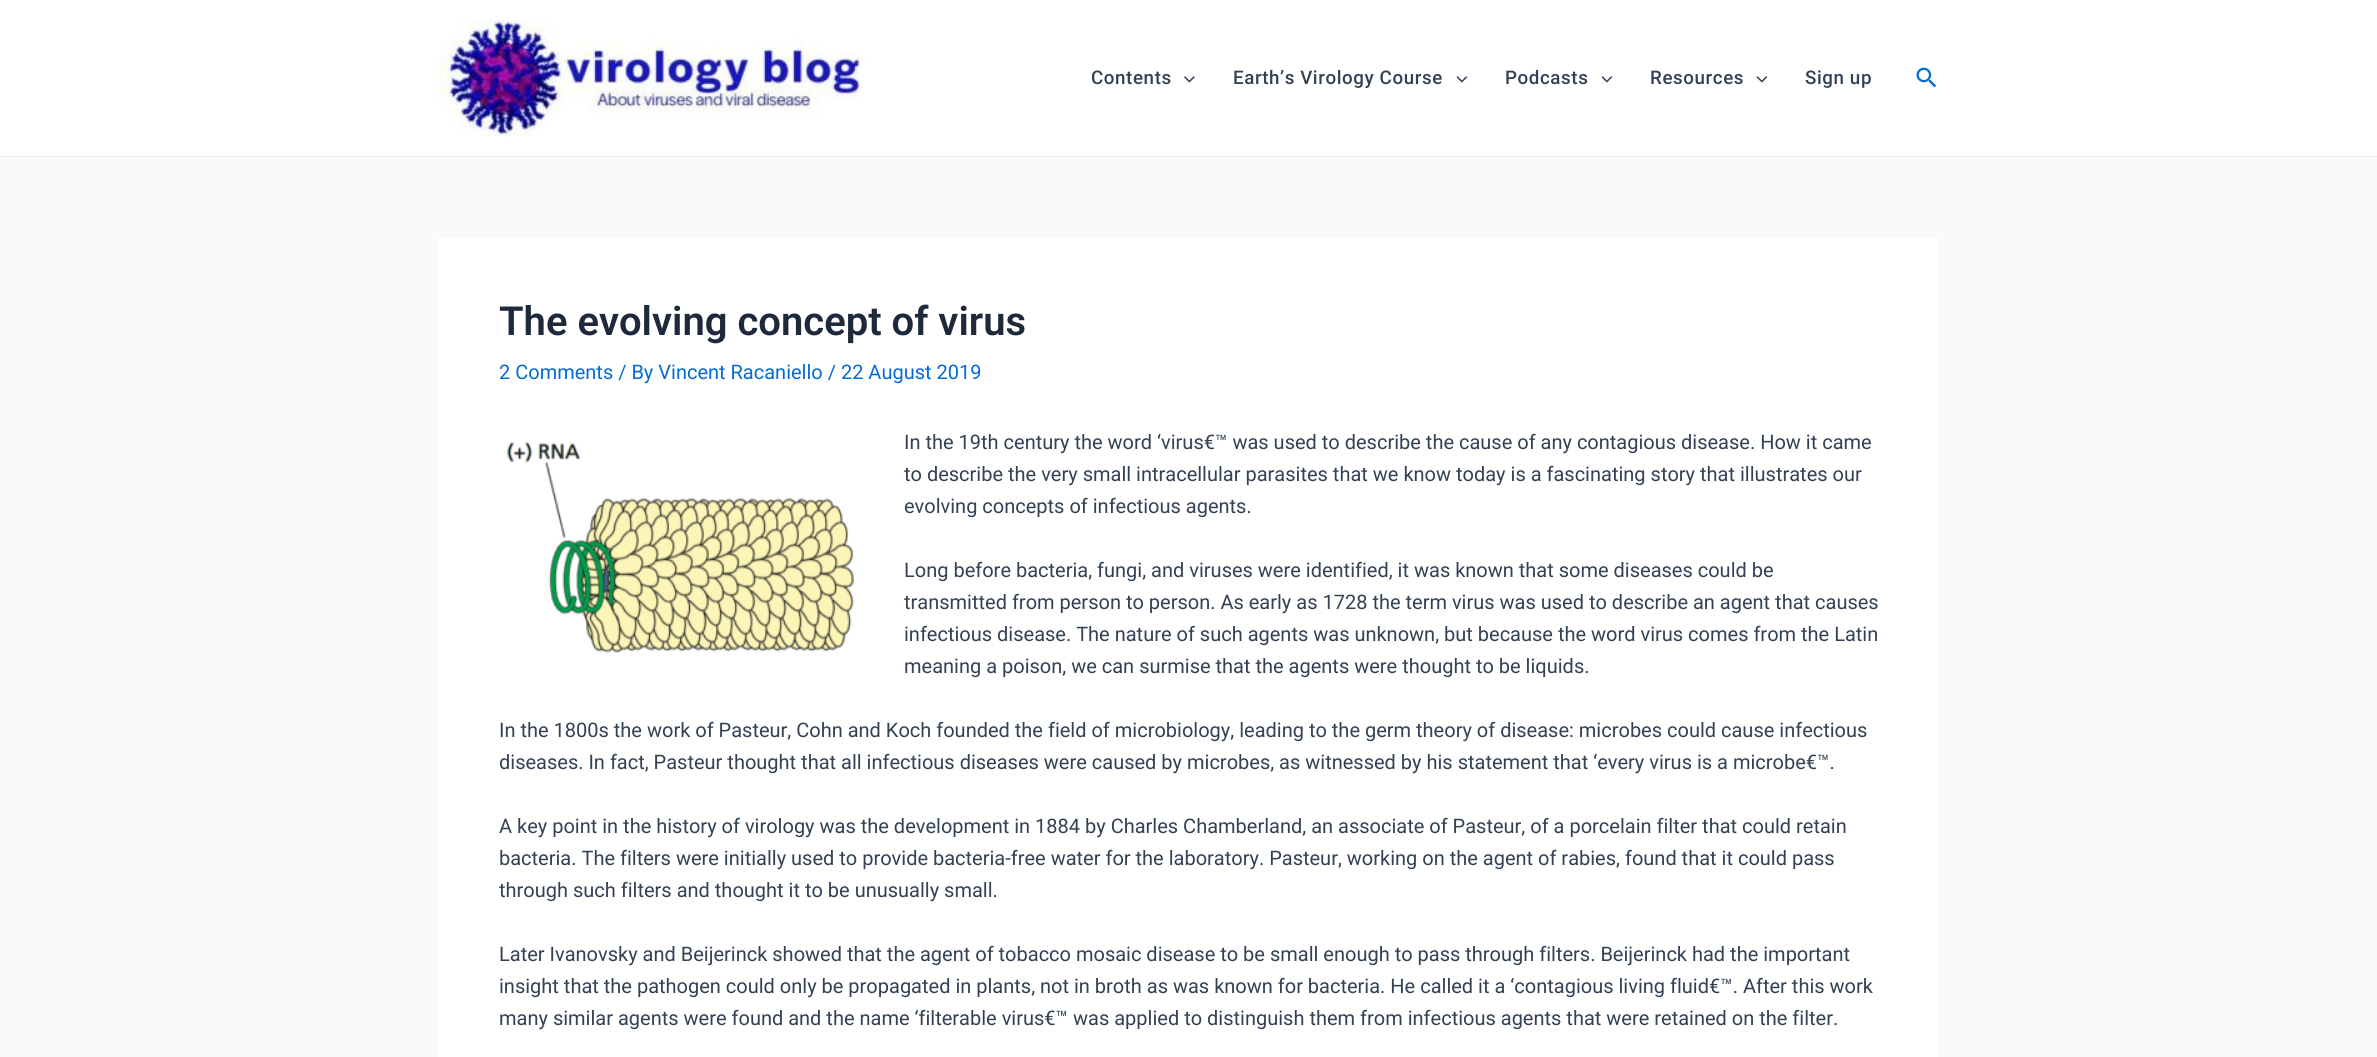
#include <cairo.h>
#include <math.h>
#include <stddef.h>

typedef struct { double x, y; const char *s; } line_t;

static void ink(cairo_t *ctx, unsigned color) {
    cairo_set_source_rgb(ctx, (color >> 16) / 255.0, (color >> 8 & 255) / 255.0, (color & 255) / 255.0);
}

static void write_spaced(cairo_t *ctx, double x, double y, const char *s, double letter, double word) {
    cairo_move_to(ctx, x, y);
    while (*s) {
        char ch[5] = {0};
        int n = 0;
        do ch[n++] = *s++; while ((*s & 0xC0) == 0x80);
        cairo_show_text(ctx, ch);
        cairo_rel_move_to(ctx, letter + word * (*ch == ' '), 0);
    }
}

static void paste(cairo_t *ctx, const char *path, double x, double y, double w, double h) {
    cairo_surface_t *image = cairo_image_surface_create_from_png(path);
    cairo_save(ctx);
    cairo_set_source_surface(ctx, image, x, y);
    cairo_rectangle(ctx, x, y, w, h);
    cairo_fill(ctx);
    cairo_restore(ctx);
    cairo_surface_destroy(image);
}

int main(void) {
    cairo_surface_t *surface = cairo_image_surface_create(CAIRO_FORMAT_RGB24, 2377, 1057);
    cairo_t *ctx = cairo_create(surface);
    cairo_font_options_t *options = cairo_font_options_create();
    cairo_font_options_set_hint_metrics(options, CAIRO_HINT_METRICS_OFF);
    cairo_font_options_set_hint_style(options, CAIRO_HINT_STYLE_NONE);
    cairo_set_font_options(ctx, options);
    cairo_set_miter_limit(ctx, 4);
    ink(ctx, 0xF9FAFB);
    cairo_paint(ctx);
    ink(ctx, 0xFFFFFF);
    cairo_rectangle(ctx, 0, 0, 2377, 158);
    cairo_fill(ctx);
    ink(ctx, 0xEAEAEA);
    cairo_rectangle(ctx, 0, 156, 2377, 1);
    cairo_fill(ctx);
    paste(ctx, "media/1.png", 438, 20, 427, 117);
    cairo_select_font_face(ctx, "Roboto Medium", CAIRO_FONT_SLANT_NORMAL, CAIRO_FONT_WEIGHT_NORMAL);
    cairo_set_font_size(ctx, 18.75);
    ink(ctx, 0x334155);
    write_spaced(ctx, 1091, 84, "Contents", 0.6, 0);
    paste(ctx, "media/2.png", 1184, 76, 11, 7);
    write_spaced(ctx, 1233, 84, "Earth’s Virology Course", 0.6, 0);
    paste(ctx, "media/3.png", 1456, 76, 12, 7);
    write_spaced(ctx, 1505, 84, "Podcasts", 0.6, 0);
    paste(ctx, "media/3.png", 1601, 76, 12, 7);
    write_spaced(ctx, 1650, 84, "Resources", 0.6, 0);
    paste(ctx, "media/3.png", 1756, 76, 12, 7);
    write_spaced(ctx, 1805, 84, "Sign up", 0.6, 0);
    paste(ctx, "media/4.png", 1916, 67, 20, 21);
    ink(ctx, 0xFFFFFF);
    cairo_rectangle(ctx, 439, 238, 1500, 819);
    cairo_fill(ctx);
    cairo_select_font_face(ctx, "Roboto SemiBold", CAIRO_FONT_SLANT_NORMAL, CAIRO_FONT_WEIGHT_NORMAL);
    cairo_set_font_size(ctx, 40);
    ink(ctx, 0x1E293B);
    cairo_move_to(ctx, 499, 335);
    cairo_show_text(ctx, "The evolving concept of virus");
    cairo_select_font_face(ctx, "Roboto", CAIRO_FONT_SLANT_NORMAL, CAIRO_FONT_WEIGHT_NORMAL);
    cairo_set_font_size(ctx, 20);
    ink(ctx, 0x046BD2);
    cairo_move_to(ctx, 499, 379);
    cairo_show_text(ctx, "2 Comments / By Vincent Racaniello / 22 August 2019");
    paste(ctx, "media/5.png", 507, 441, 348, 213);
    ink(ctx, 0x334155);
    {
        static const line_t items[] = {
            {904, 449, "In the 19th century the word ‘virus€™ was used to describe the cause of any contagious disease. How it came"},
            {904, 481, "to describe the very small intracellular parasites that we know today is a fascinating story that illustrates our"},
            {904, 513, "evolving concepts of infectious agents."},
            {904, 577, "Long before bacteria, fungi, and viruses were identified, it was known that some diseases could be"},
            {904, 609, "transmitted from person to person. As early as 1728 the term virus was used to describe an agent that causes"},
            {904, 641, "infectious disease. The nature of such agents was unknown, but because the word virus comes from the Latin"},
            {904, 673, "meaning a poison, we can surmise that the agents were thought to be liquids."},
            {499, 737, "In the 1800s the work of Pasteur, Cohn and Koch founded the field of microbiology, leading to the germ theory of disease: microbes could cause infectious"},
            {499, 769, "diseases. In fact, Pasteur thought that all infectious diseases were caused by microbes, as witnessed by his statement that ‘every virus is a microbe€™."},
            {499, 833, "A key point in the history of virology was the development in 1884 by Charles Chamberland, an associate of Pasteur, of a porcelain filter that could retain"},
            {499, 865, "bacteria. The filters were initially used to provide bacteria-free water for the laboratory. Pasteur, working on the agent of rabies, found that it could pass"},
            {499, 897, "through such filters and thought it to be unusually small."},
            {499, 961, "Later Ivanovsky and Beijerinck showed that the agent of tobacco mosaic disease to be small enough to pass through filters. Beijerinck had the important"},
            {499, 993, "insight that the pathogen could only be propagated in plants, not in broth as was known for bacteria. He called it a ‘contagious living fluid€™. After this work"},
            {499, 1025, "many similar agents were found and the name ‘filterable virus€™ was applied to distinguish them from infectious agents that were retained on the filter."},
        };
        for (size_t i = 0; i < sizeof items / sizeof *items; i++) {
            cairo_move_to(ctx, items[i].x, items[i].y);
            cairo_show_text(ctx, items[i].s);
        }
    }
    cairo_surface_write_to_png(surface, "image.png");
    cairo_font_options_destroy(options);
    cairo_destroy(ctx);
    cairo_surface_destroy(surface);
    return 0;
}
